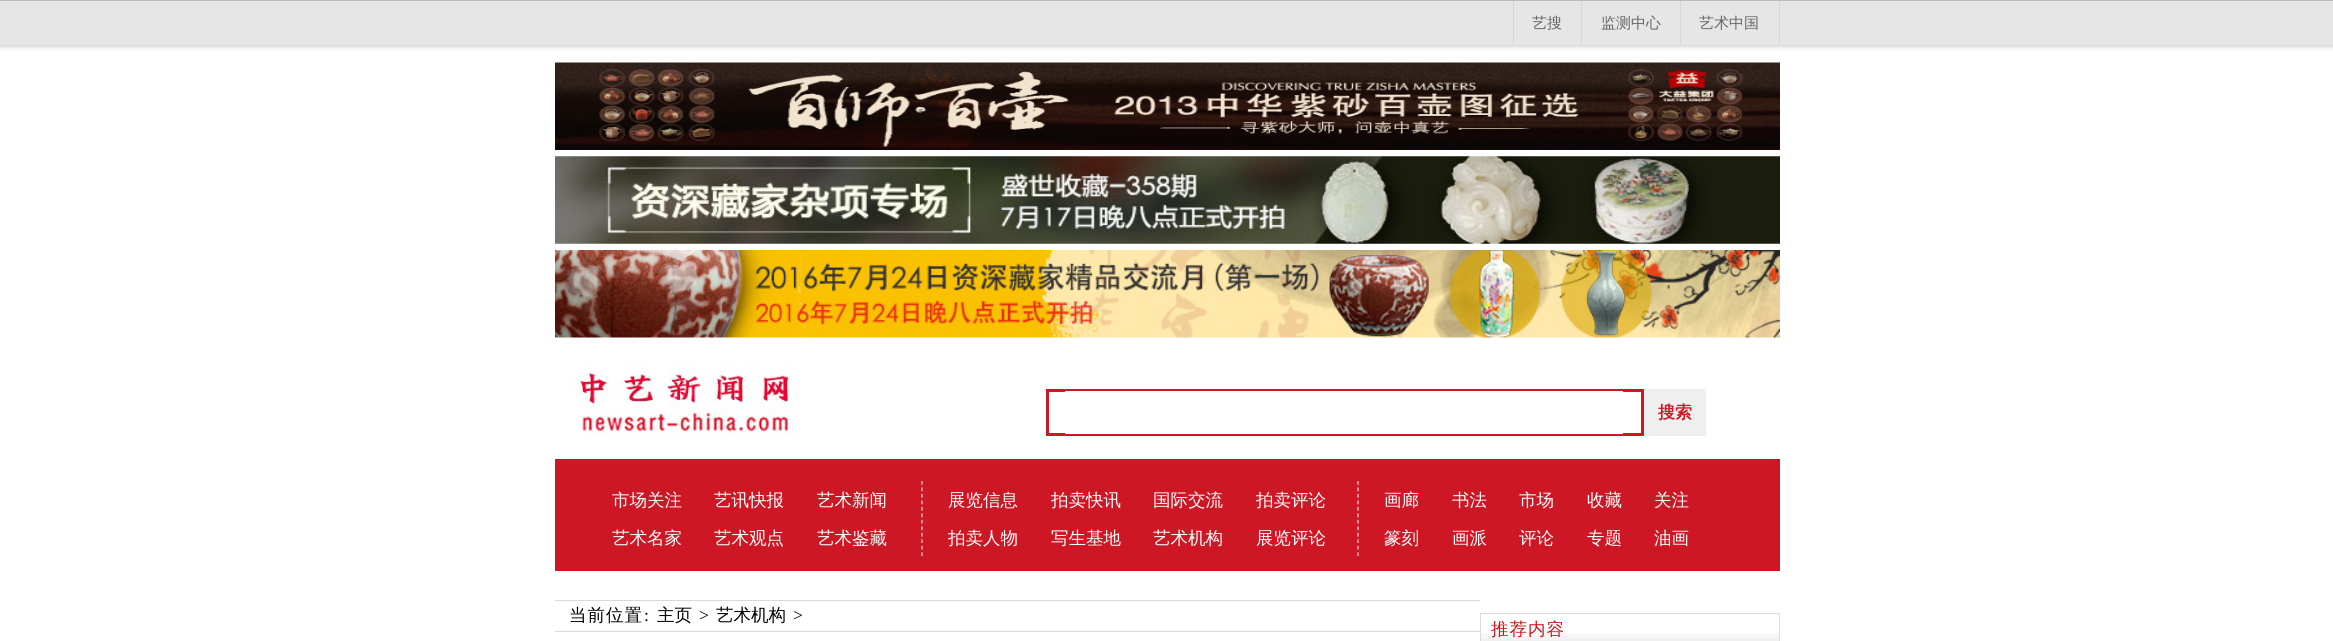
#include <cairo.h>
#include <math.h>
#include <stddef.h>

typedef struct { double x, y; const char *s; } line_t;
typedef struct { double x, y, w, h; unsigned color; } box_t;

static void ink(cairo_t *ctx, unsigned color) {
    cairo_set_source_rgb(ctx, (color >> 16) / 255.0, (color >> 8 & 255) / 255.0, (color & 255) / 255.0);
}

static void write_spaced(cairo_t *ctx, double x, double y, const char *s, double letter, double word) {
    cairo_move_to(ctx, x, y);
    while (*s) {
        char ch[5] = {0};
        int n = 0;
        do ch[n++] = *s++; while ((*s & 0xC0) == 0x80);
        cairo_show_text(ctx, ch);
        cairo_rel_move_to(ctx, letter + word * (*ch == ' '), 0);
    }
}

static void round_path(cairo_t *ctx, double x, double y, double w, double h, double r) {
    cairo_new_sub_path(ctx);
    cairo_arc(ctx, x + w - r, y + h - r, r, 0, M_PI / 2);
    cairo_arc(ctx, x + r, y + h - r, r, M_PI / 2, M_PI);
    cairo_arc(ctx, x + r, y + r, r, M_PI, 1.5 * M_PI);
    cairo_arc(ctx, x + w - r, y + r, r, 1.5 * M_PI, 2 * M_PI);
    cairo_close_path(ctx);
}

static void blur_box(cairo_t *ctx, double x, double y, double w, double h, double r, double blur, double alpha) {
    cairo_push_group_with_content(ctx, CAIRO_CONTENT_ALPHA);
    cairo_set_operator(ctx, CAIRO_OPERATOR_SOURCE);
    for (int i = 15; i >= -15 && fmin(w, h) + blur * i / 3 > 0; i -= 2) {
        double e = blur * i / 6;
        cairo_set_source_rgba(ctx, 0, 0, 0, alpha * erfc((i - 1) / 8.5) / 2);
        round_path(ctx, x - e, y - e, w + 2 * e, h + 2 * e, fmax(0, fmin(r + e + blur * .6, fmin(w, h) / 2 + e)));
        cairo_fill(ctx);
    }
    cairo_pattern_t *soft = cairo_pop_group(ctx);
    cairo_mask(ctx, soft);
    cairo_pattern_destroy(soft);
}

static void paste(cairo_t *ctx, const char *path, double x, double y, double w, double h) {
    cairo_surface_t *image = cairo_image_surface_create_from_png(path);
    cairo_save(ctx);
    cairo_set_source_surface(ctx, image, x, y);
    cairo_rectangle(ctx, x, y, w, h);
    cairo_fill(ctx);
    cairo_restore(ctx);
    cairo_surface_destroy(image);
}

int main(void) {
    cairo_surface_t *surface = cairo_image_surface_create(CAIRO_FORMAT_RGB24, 2333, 641);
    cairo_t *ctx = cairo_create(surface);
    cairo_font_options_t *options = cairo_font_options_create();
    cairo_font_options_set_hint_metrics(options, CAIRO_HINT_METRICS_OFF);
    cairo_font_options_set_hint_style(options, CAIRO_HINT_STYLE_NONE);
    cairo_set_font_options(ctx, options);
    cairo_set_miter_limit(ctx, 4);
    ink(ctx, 0xFFFFFF);
    cairo_paint(ctx);
    ink(ctx, 0xC4C4C4);
    blur_box(ctx, 0, 1, 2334, 45, 0, 2.5, 1);
    {
        static const box_t items[] = {
            {0, 1, 2333, 44, 0xE6E6E6},
            {0, 0, 2333, 1, 0xBBBBBB},
            {1513, 1, 1, 44, 0xD6D6D6},
            {1581, 1, 1, 44, 0xD6D6D6},
        };
        for (size_t i = 0; i < sizeof items / sizeof *items; i++) {
            ink(ctx, items[i].color);
            cairo_rectangle(ctx, items[i].x, items[i].y, items[i].w, items[i].h);
            cairo_fill(ctx);
        }
    }
    cairo_select_font_face(ctx, "WenQuanYi Zen Hei Medium", CAIRO_FONT_SLANT_NORMAL, CAIRO_FONT_WEIGHT_NORMAL);
    cairo_set_font_size(ctx, 15);
    ink(ctx, 0x666666);
    cairo_move_to(ctx, 1532, 28);
    cairo_show_text(ctx, "艺搜");
    ink(ctx, 0xD6D6D6);
    cairo_rectangle(ctx, 1680, 1, 1, 44);
    cairo_fill(ctx);
    ink(ctx, 0x666666);
    cairo_move_to(ctx, 1601, 28);
    cairo_show_text(ctx, "监测中心");
    ink(ctx, 0xD6D6D6);
    cairo_rectangle(ctx, 1779, 1, 1, 44);
    cairo_fill(ctx);
    ink(ctx, 0x666666);
    cairo_move_to(ctx, 1699, 28);
    cairo_show_text(ctx, "艺术中国");
    paste(ctx, "media/1.png", 555, 62, 1225, 88);
    paste(ctx, "media/2.png", 555, 156, 1225, 88);
    paste(ctx, "media/3.png", 555, 250, 1225, 88);
    paste(ctx, "media/4.png", 567, 366, 231, 72);
    cairo_rectangle(ctx, 1047.5, 390.5, 595, 44);
    ink(ctx, 0xCE1724);
    cairo_set_line_width(ctx, 3);
    cairo_stroke(ctx);
    ink(ctx, 0xFFFFFF);
    cairo_rectangle(ctx, 1065, 391, 558, 43);
    cairo_fill(ctx);
    ink(ctx, 0xEFEFEF);
    cairo_rectangle(ctx, 1644, 389, 62, 47);
    cairo_fill(ctx);
    cairo_select_font_face(ctx, "WenQuanYi Zen Hei", CAIRO_FONT_SLANT_NORMAL, CAIRO_FONT_WEIGHT_BOLD);
    cairo_set_font_size(ctx, 17);
    ink(ctx, 0xCE1724);
    cairo_move_to(ctx, 1658, 418);
    cairo_show_text(ctx, "搜索");
    cairo_rectangle(ctx, 555, 459, 1225, 112);
    cairo_fill(ctx);
    cairo_new_path(ctx);
    cairo_move_to(ctx, 922, 481);
    cairo_line_to(ctx, 922, 556);
    ink(ctx, 0xD5D8E1);
    cairo_set_line_width(ctx, 1.2);
    cairo_set_dash(ctx, (double[]){3.75, 2.73}, 2, 0);
    cairo_stroke(ctx);
    cairo_select_font_face(ctx, "WenQuanYi Zen Hei Medium", CAIRO_FONT_SLANT_NORMAL, CAIRO_FONT_WEIGHT_NORMAL);
    cairo_set_font_size(ctx, 17.5);
    ink(ctx, 0xFFFFFF);
    {
        static const line_t items[] = {
            {612, 506, "市场关注"},
            {714, 506, "艺讯快报"},
            {817, 506, "艺术新闻"},
            {612, 544, "艺术名家"},
            {714, 544, "艺术观点"},
            {817, 544, "艺术鉴藏"},
        };
        for (size_t i = 0; i < sizeof items / sizeof *items; i++) {
            cairo_move_to(ctx, items[i].x, items[i].y);
            cairo_show_text(ctx, items[i].s);
        }
    }
    cairo_new_path(ctx);
    cairo_move_to(ctx, 1358, 481);
    cairo_line_to(ctx, 1358, 556);
    ink(ctx, 0xD5D8E1);
    cairo_stroke(ctx);
    ink(ctx, 0xFFFFFF);
    {
        static const line_t items[] = {
            {948, 506, "展览信息"},
            {1051, 506, "拍卖快讯"},
            {1153, 506, "国际交流"},
            {1256, 506, "拍卖评论"},
            {948, 544, "拍卖人物"},
            {1051, 544, "写生基地"},
            {1153, 544, "艺术机构"},
            {1256, 544, "展览评论"},
            {1384, 506, "画廊"},
            {1452, 506, "书法"},
            {1519, 506, "市场"},
            {1587, 506, "收藏"},
            {1654, 506, "关注"},
            {1384, 544, "篆刻"},
            {1452, 544, "画派"},
            {1519, 544, "评论"},
            {1587, 544, "专题"},
            {1654, 544, "油画"},
        };
        for (size_t i = 0; i < sizeof items / sizeof *items; i++) {
            cairo_move_to(ctx, items[i].x, items[i].y);
            cairo_show_text(ctx, items[i].s);
        }
    }
    ink(ctx, 0xD9D9D9);
    cairo_rectangle(ctx, 555, 600, 925, 1);
    cairo_fill(ctx);
    cairo_rectangle(ctx, 555, 631, 925, 1);
    cairo_fill(ctx);
    ink(ctx, 0x000000);
    write_spaced(ctx, 569, 621, "当前位置", 1, 0);
    cairo_select_font_face(ctx, "Liberation Serif", CAIRO_FONT_SLANT_NORMAL, CAIRO_FONT_WEIGHT_NORMAL);
    write_spaced(ctx, 644, 621, ":", 1, 0);
    cairo_select_font_face(ctx, "WenQuanYi Zen Hei Medium", CAIRO_FONT_SLANT_NORMAL, CAIRO_FONT_WEIGHT_NORMAL);
    cairo_move_to(ctx, 657, 621);
    cairo_show_text(ctx, "主页");
    cairo_select_font_face(ctx, "Liberation Serif", CAIRO_FONT_SLANT_NORMAL, CAIRO_FONT_WEIGHT_NORMAL);
    cairo_move_to(ctx, 699, 621);
    cairo_show_text(ctx, ">");
    cairo_select_font_face(ctx, "WenQuanYi Zen Hei Medium", CAIRO_FONT_SLANT_NORMAL, CAIRO_FONT_WEIGHT_NORMAL);
    cairo_move_to(ctx, 716, 621);
    cairo_show_text(ctx, "艺术机构");
    cairo_select_font_face(ctx, "Liberation Serif", CAIRO_FONT_SLANT_NORMAL, CAIRO_FONT_WEIGHT_NORMAL);
    cairo_move_to(ctx, 793, 621);
    cairo_show_text(ctx, ">");
    paste(ctx, "media/5.png", 1481, 633, 298, 8);
    cairo_rectangle(ctx, 1480.5, 613.5, 299, 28);
    ink(ctx, 0xDADADA);
    cairo_set_line_width(ctx, 1);
    cairo_set_dash(ctx, NULL, 0, 0);
    cairo_stroke(ctx);
    cairo_select_font_face(ctx, "WenQuanYi Zen Hei Medium", CAIRO_FONT_SLANT_NORMAL, CAIRO_FONT_WEIGHT_NORMAL);
    ink(ctx, 0xCF1017);
    write_spaced(ctx, 1491, 635, "推荐内容", 1, 0);
    cairo_surface_write_to_png(surface, "image.png");
    cairo_font_options_destroy(options);
    cairo_destroy(ctx);
    cairo_surface_destroy(surface);
    return 0;
}
